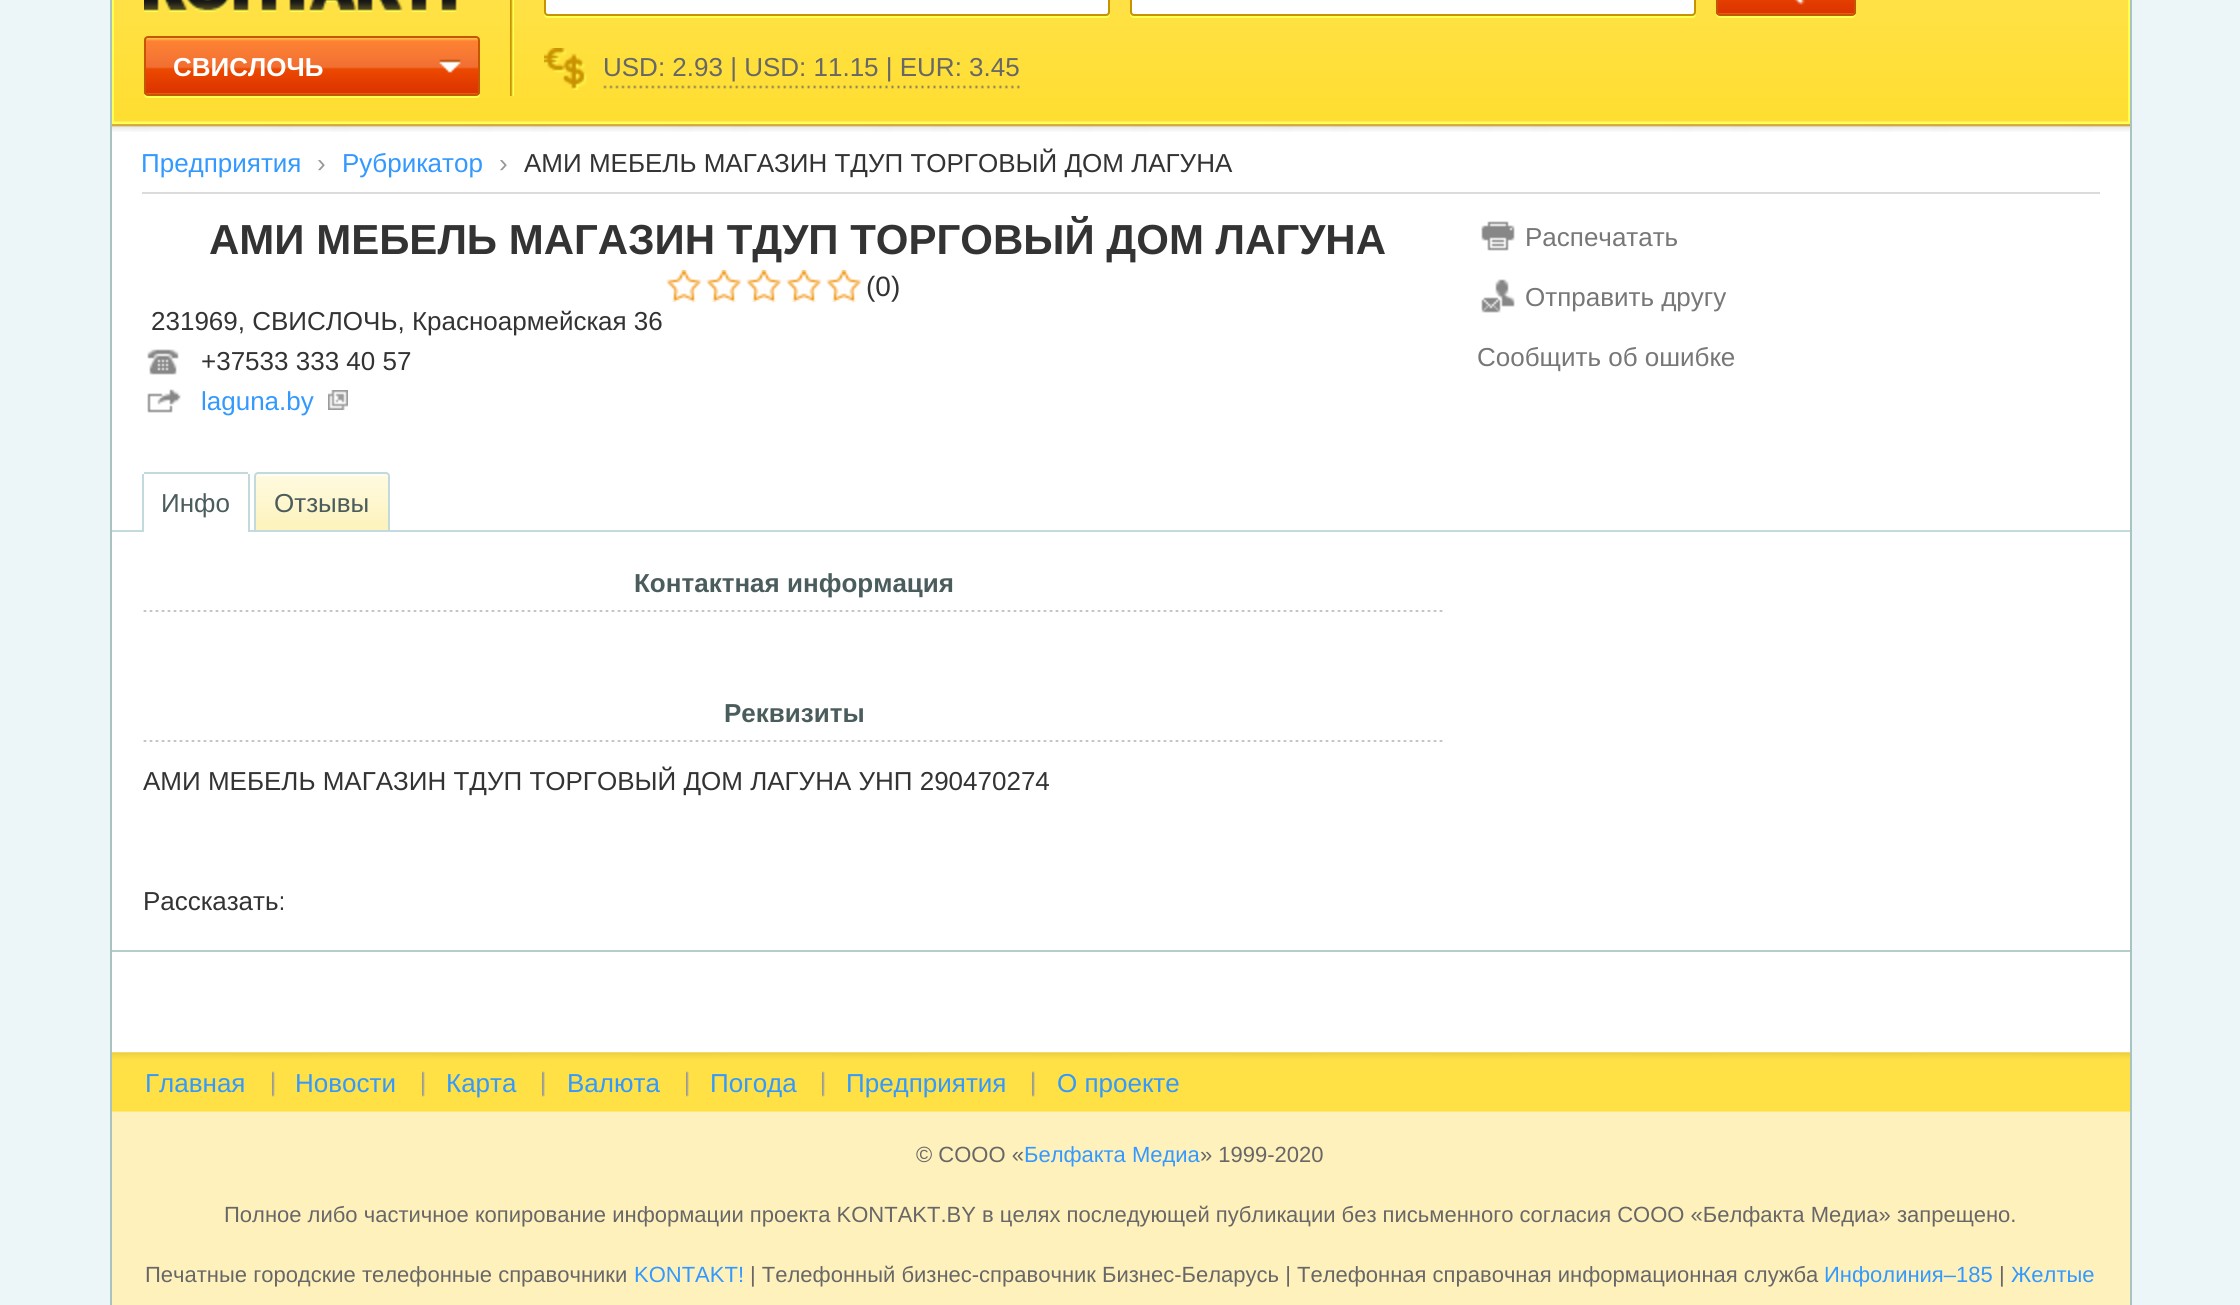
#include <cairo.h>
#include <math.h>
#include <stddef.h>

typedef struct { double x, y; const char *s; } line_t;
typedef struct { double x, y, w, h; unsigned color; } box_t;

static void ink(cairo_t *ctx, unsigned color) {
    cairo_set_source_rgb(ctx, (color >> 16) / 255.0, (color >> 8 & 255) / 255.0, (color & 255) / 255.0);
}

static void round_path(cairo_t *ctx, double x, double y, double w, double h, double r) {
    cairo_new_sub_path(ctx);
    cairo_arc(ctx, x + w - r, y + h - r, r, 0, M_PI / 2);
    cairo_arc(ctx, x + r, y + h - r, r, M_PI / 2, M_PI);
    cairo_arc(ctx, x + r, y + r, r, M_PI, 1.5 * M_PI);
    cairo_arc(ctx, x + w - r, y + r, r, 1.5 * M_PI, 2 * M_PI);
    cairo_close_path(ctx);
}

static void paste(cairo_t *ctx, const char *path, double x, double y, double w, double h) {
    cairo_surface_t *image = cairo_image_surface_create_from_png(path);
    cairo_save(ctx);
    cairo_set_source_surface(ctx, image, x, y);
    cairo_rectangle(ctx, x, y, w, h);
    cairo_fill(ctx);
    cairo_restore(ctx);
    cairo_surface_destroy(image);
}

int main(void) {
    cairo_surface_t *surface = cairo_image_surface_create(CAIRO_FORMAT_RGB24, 2240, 1305);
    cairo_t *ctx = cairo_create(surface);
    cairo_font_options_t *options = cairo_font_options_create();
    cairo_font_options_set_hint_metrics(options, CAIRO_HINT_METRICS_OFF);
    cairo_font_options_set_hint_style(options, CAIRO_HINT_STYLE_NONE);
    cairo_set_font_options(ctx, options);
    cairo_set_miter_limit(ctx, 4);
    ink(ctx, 0xECF5F7);
    cairo_paint(ctx);
    {
        static const box_t items[] = {
            {112, 121, 2018, 991, 0xFFFFFF},
            {2130, 0, 2, 1305, 0xA9C3C2},
            {110, 0, 2, 1305, 0xA9C3C2},
        };
        for (size_t i = 0; i < sizeof items / sizeof *items; i++) {
            ink(ctx, items[i].color);
            cairo_rectangle(ctx, items[i].x, items[i].y, items[i].w, items[i].h);
            cairo_fill(ctx);
        }
    }
    paste(ctx, "media/1.png", 112, 0, 2018, 132);
    {
        static const box_t items[] = {
            {2128, 0, 2, 124, 0xFFFF52},
            {112, 122, 2018, 2, 0xFFFF52},
            {112, 0, 2, 124, 0xFFFF52},
        };
        for (size_t i = 0; i < sizeof items / sizeof *items; i++) {
            ink(ctx, items[i].color);
            cairo_rectangle(ctx, items[i].x, items[i].y, items[i].w, items[i].h);
            cairo_fill(ctx);
        }
    }
    ink(ctx, 0xFFFF54);
    cairo_new_path(ctx);
    cairo_move_to(ctx, 544, 12);
    cairo_curve_to(ctx, 544, 15, 544, 18, 548, 18);
    cairo_line_to(ctx, 1106, 18);
    cairo_curve_to(ctx, 1110, 18, 1110, 15, 1110, 12);
    cairo_curve_to(ctx, 1110, 14, 1108, 16, 1106, 16);
    cairo_line_to(ctx, 548, 16);
    cairo_curve_to(ctx, 546, 16, 544, 14, 544, 12);
    cairo_close_path(ctx);
    cairo_fill(ctx);
    ink(ctx, 0xFFFFFF);
    round_path(ctx, 545, -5, 564, 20, 3);
    cairo_fill_preserve(ctx);
    ink(ctx, 0xC99200);
    cairo_stroke(ctx);
    ink(ctx, 0xFFFF54);
    cairo_new_path(ctx);
    cairo_move_to(ctx, 1130, 12);
    cairo_curve_to(ctx, 1130, 15, 1130, 18, 1134, 18);
    cairo_line_to(ctx, 1692, 18);
    cairo_curve_to(ctx, 1696, 18, 1696, 15, 1696, 12);
    cairo_curve_to(ctx, 1696, 14, 1694, 16, 1692, 16);
    cairo_line_to(ctx, 1134, 16);
    cairo_curve_to(ctx, 1132, 16, 1130, 14, 1130, 12);
    cairo_close_path(ctx);
    cairo_fill(ctx);
    ink(ctx, 0xFFFFFF);
    round_path(ctx, 1131, -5, 564, 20, 3);
    cairo_fill_preserve(ctx);
    ink(ctx, 0xC99200);
    cairo_stroke(ctx);
    ink(ctx, 0xFFFF54);
    cairo_new_path(ctx);
    cairo_move_to(ctx, 1716, 12);
    cairo_line_to(ctx, 1716, 14);
    cairo_curve_to(ctx, 1716, 16, 1718, 18, 1720, 18);
    cairo_line_to(ctx, 1852, 18);
    cairo_curve_to(ctx, 1854, 18, 1856, 16, 1856, 14);
    cairo_line_to(ctx, 1856, 12);
    cairo_curve_to(ctx, 1856, 14, 1854, 16, 1852, 16);
    cairo_line_to(ctx, 1720, 16);
    cairo_curve_to(ctx, 1718, 16, 1716, 14, 1716, 12);
    cairo_close_path(ctx);
    cairo_fill(ctx);
    paste(ctx, "media/2.png", 1716, 0, 140, 15);
    round_path(ctx, 1717, -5, 138, 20, 3);
    ink(ctx, 0xC45600);
    cairo_stroke(ctx);
    paste(ctx, "media/3.png", 1794, 0, 11, 5);
    paste(ctx, "media/4.png", 510, 0, 4, 96);
    paste(ctx, "media/5.png", 144, 0, 313, 12);
    ink(ctx, 0xFFFF52);
    cairo_new_path(ctx);
    cairo_move_to(ctx, 144, 92);
    cairo_curve_to(ctx, 144, 95, 144, 98, 148, 98);
    cairo_line_to(ctx, 476, 98);
    cairo_curve_to(ctx, 480, 98, 480, 95, 480, 92);
    cairo_curve_to(ctx, 480, 94, 478, 96, 476, 96);
    cairo_line_to(ctx, 148, 96);
    cairo_curve_to(ctx, 146, 96, 144, 94, 144, 92);
    cairo_close_path(ctx);
    cairo_fill(ctx);
    paste(ctx, "media/6.png", 144, 37, 336, 58);
    round_path(ctx, 145, 37, 334, 58, 3);
    ink(ctx, 0xC55700);
    cairo_stroke(ctx);
    cairo_select_font_face(ctx, "Liberation Sans", CAIRO_FONT_SLANT_NORMAL, CAIRO_FONT_WEIGHT_BOLD);
    cairo_set_font_size(ctx, 26);
    ink(ctx, 0xFFFFFF);
    cairo_move_to(ctx, 173, 76);
    cairo_show_text(ctx, "СВИСЛОЧЬ");
    paste(ctx, "media/7.png", 439, 59, 22, 14);
    paste(ctx, "media/8.png", 544, 48, 476, 42);
    cairo_select_font_face(ctx, "Liberation Sans", CAIRO_FONT_SLANT_NORMAL, CAIRO_FONT_WEIGHT_NORMAL);
    ink(ctx, 0x676767);
    cairo_move_to(ctx, 603, 76);
    cairo_show_text(ctx, "USD: 2.93 | USD: 11.15 | EUR: 3.45");
    ink(ctx, 0xDBDBDB);
    cairo_rectangle(ctx, 142, 192, 1958, 2);
    cairo_fill(ctx);
    ink(ctx, 0x3399FF);
    cairo_move_to(ctx, 141, 172);
    cairo_show_text(ctx, "Предприятия");
    ink(ctx, 0x999999);
    cairo_move_to(ctx, 317, 172);
    cairo_show_text(ctx, "›");
    ink(ctx, 0x3399FF);
    cairo_move_to(ctx, 342, 172);
    cairo_show_text(ctx, "Рубрикатор");
    ink(ctx, 0x999999);
    cairo_move_to(ctx, 499, 172);
    cairo_show_text(ctx, "›");
    ink(ctx, 0x333333);
    cairo_move_to(ctx, 524, 172);
    cairo_show_text(ctx, "АМИ МЕБЕЛЬ МАГАЗИН ТДУП ТОРГОВЫЙ ДОМ ЛАГУНА");
    cairo_select_font_face(ctx, "Liberation Sans", CAIRO_FONT_SLANT_NORMAL, CAIRO_FONT_WEIGHT_BOLD);
    cairo_set_font_size(ctx, 42);
    cairo_move_to(ctx, 209, 254);
    cairo_show_text(ctx, "АМИ МЕБЕЛЬ МАГАЗИН ТДУП ТОРГОВЫЙ ДОМ ЛАГУНА");
    paste(ctx, "media/9.png", 666, 270, 36, 32);
    paste(ctx, "media/9.png", 706, 270, 36, 32);
    paste(ctx, "media/9.png", 746, 270, 36, 32);
    paste(ctx, "media/9.png", 786, 270, 36, 32);
    paste(ctx, "media/9.png", 826, 270, 36, 32);
    cairo_select_font_face(ctx, "Liberation Sans", CAIRO_FONT_SLANT_NORMAL, CAIRO_FONT_WEIGHT_NORMAL);
    cairo_set_font_size(ctx, 28);
    cairo_move_to(ctx, 866, 296);
    cairo_show_text(ctx, "(0)");
    cairo_set_font_size(ctx, 26);
    cairo_move_to(ctx, 151, 330);
    cairo_show_text(ctx, "231969, СВИСЛОЧЬ, Красноармейская 36");
    paste(ctx, "media/10.png", 147, 349, 32, 26);
    cairo_move_to(ctx, 201, 370);
    cairo_show_text(ctx, "+37533 333 40 57");
    paste(ctx, "media/11.png", 147, 389, 34, 24);
    ink(ctx, 0x3399FF);
    cairo_move_to(ctx, 201, 410);
    cairo_show_text(ctx, "laguna.by");
    paste(ctx, "media/12.png", 328, 390, 20, 20);
    paste(ctx, "media/13.png", 1481, 221, 34, 30);
    ink(ctx, 0x777777);
    cairo_move_to(ctx, 1525, 246);
    cairo_show_text(ctx, "Распечатать");
    paste(ctx, "media/14.png", 1481, 279, 34, 34);
    cairo_move_to(ctx, 1525, 306);
    cairo_show_text(ctx, "Отправить другу");
    cairo_move_to(ctx, 1477, 366);
    cairo_show_text(ctx, "Сообщить об ошибке");
    ink(ctx, 0xFDF3BE);
    cairo_new_path(ctx);
    cairo_move_to(ctx, 258, 472);
    cairo_line_to(ctx, 386, 472);
    cairo_curve_to(ctx, 388, 472, 390, 474, 390, 476);
    cairo_line_to(ctx, 390, 532);
    cairo_line_to(ctx, 254, 532);
    cairo_line_to(ctx, 254, 476);
    cairo_curve_to(ctx, 254, 474, 256, 472, 258, 472);
    cairo_close_path(ctx);
    cairo_fill(ctx);
    paste(ctx, "media/15.png", 254, 473, 136, 47);
    cairo_new_path(ctx);
    cairo_move_to(ctx, 258, 473);
    cairo_line_to(ctx, 386, 473);
    cairo_curve_to(ctx, 387.5, 473, 389, 474.5, 389, 476);
    cairo_line_to(ctx, 389, 531);
    cairo_line_to(ctx, 255, 531);
    cairo_line_to(ctx, 255, 476);
    cairo_curve_to(ctx, 255, 474.5, 256.5, 473, 258, 473);
    cairo_close_path(ctx);
    ink(ctx, 0xC3DADD);
    cairo_stroke(ctx);
    ink(ctx, 0xC4DADC);
    cairo_rectangle(ctx, 112, 530, 2018, 2);
    cairo_fill(ctx);
    ink(ctx, 0xFFFFFF);
    cairo_new_path(ctx);
    cairo_move_to(ctx, 146, 472);
    cairo_line_to(ctx, 246, 472);
    cairo_curve_to(ctx, 248, 472, 250, 474, 250, 476);
    cairo_line_to(ctx, 250, 532);
    cairo_line_to(ctx, 142, 532);
    cairo_line_to(ctx, 142, 476);
    cairo_curve_to(ctx, 142, 474, 144, 472, 146, 472);
    cairo_close_path(ctx);
    cairo_fill(ctx);
    {
        static const box_t items[] = {
            {144, 472, 104, 2, 0xC3DADD},
            {248, 474, 2, 58, 0xC3DADD},
            {142, 474, 2, 58, 0xC3DADD},
        };
        for (size_t i = 0; i < sizeof items / sizeof *items; i++) {
            ink(ctx, items[i].color);
            cairo_rectangle(ctx, items[i].x, items[i].y, items[i].w, items[i].h);
            cairo_fill(ctx);
        }
    }
    ink(ctx, 0x4A5C5C);
    cairo_move_to(ctx, 161, 512);
    cairo_show_text(ctx, "Инфо");
    cairo_move_to(ctx, 274, 512);
    cairo_show_text(ctx, "Отзывы");
    paste(ctx, "media/16.png", 143, 610, 1300, 2);
    cairo_select_font_face(ctx, "Liberation Sans", CAIRO_FONT_SLANT_NORMAL, CAIRO_FONT_WEIGHT_BOLD);
    cairo_move_to(ctx, 634, 592);
    cairo_show_text(ctx, "Контактная информация");
    paste(ctx, "media/16.png", 143, 740, 1300, 2);
    cairo_move_to(ctx, 724, 722);
    cairo_show_text(ctx, "Реквизиты");
    cairo_select_font_face(ctx, "Liberation Sans", CAIRO_FONT_SLANT_NORMAL, CAIRO_FONT_WEIGHT_NORMAL);
    ink(ctx, 0x333333);
    cairo_move_to(ctx, 143, 790);
    cairo_show_text(ctx, "АМИ МЕБЕЛЬ МАГАЗИН ТДУП ТОРГОВЫЙ ДОМ ЛАГУНА УНП 290470274");
    ink(ctx, 0xB6CCCC);
    cairo_rectangle(ctx, 112, 950, 2018, 2);
    cairo_fill(ctx);
    ink(ctx, 0x333333);
    cairo_move_to(ctx, 143, 910);
    cairo_show_text(ctx, "Рассказать:");
    paste(ctx, "media/17.png", 112, 1052, 2018, 60);
    ink(ctx, 0x3399FF);
    cairo_move_to(ctx, 145, 1092);
    cairo_show_text(ctx, "Главная");
    paste(ctx, "media/18.png", 272, 1071, 3, 26);
    cairo_move_to(ctx, 295, 1092);
    cairo_show_text(ctx, "Новости");
    paste(ctx, "media/18.png", 422, 1071, 3, 26);
    cairo_move_to(ctx, 446, 1092);
    cairo_show_text(ctx, "Карта");
    paste(ctx, "media/19.png", 542, 1071, 3, 26);
    cairo_move_to(ctx, 567, 1092);
    cairo_show_text(ctx, "Валюта");
    paste(ctx, "media/18.png", 686, 1071, 3, 26);
    cairo_move_to(ctx, 710, 1092);
    cairo_show_text(ctx, "Погода");
    paste(ctx, "media/18.png", 822, 1071, 3, 26);
    cairo_move_to(ctx, 846, 1092);
    cairo_show_text(ctx, "Предприятия");
    paste(ctx, "media/19.png", 1032, 1071, 3, 26);
    cairo_move_to(ctx, 1057, 1092);
    cairo_show_text(ctx, "О проекте");
    ink(ctx, 0xFFF1BC);
    cairo_rectangle(ctx, 112, 1112, 2018, 193);
    cairo_fill(ctx);
    cairo_set_font_size(ctx, 22);
    ink(ctx, 0x676767);
    cairo_move_to(ctx, 916, 1162);
    cairo_show_text(ctx, "© СООО «");
    ink(ctx, 0x3399FF);
    cairo_move_to(ctx, 1024, 1162);
    cairo_show_text(ctx, "Белфакта Медиа");
    ink(ctx, 0x676767);
    {
        static const line_t items[] = {
            {1200, 1162, "» 1999-2020"},
            {224, 1222, "Полное либо частичное копирование информации проекта KONTAKT.BY в целях последующей публикации без письменного согласия СООО «Белфакта Медиа» запрещено."},
            {145, 1282, "Печатные городские телефонные справочники"},
        };
        for (size_t i = 0; i < sizeof items / sizeof *items; i++) {
            cairo_move_to(ctx, items[i].x, items[i].y);
            cairo_show_text(ctx, items[i].s);
        }
    }
    ink(ctx, 0x3399FF);
    cairo_move_to(ctx, 634, 1282);
    cairo_show_text(ctx, "KONTAKT!");
    ink(ctx, 0x676767);
    cairo_move_to(ctx, 750, 1282);
    cairo_show_text(ctx, "| Телефонный бизнес-справочник Бизнес-Беларусь | Телефонная справочная информационная служба");
    ink(ctx, 0x3399FF);
    cairo_move_to(ctx, 1824, 1282);
    cairo_show_text(ctx, "Инфолиния–185");
    ink(ctx, 0x676767);
    cairo_move_to(ctx, 1999, 1282);
    cairo_show_text(ctx, "|");
    ink(ctx, 0x3399FF);
    cairo_move_to(ctx, 2011, 1282);
    cairo_show_text(ctx, "Желтые");
    cairo_surface_write_to_png(surface, "image.png");
    cairo_font_options_destroy(options);
    cairo_destroy(ctx);
    cairo_surface_destroy(surface);
    return 0;
}
